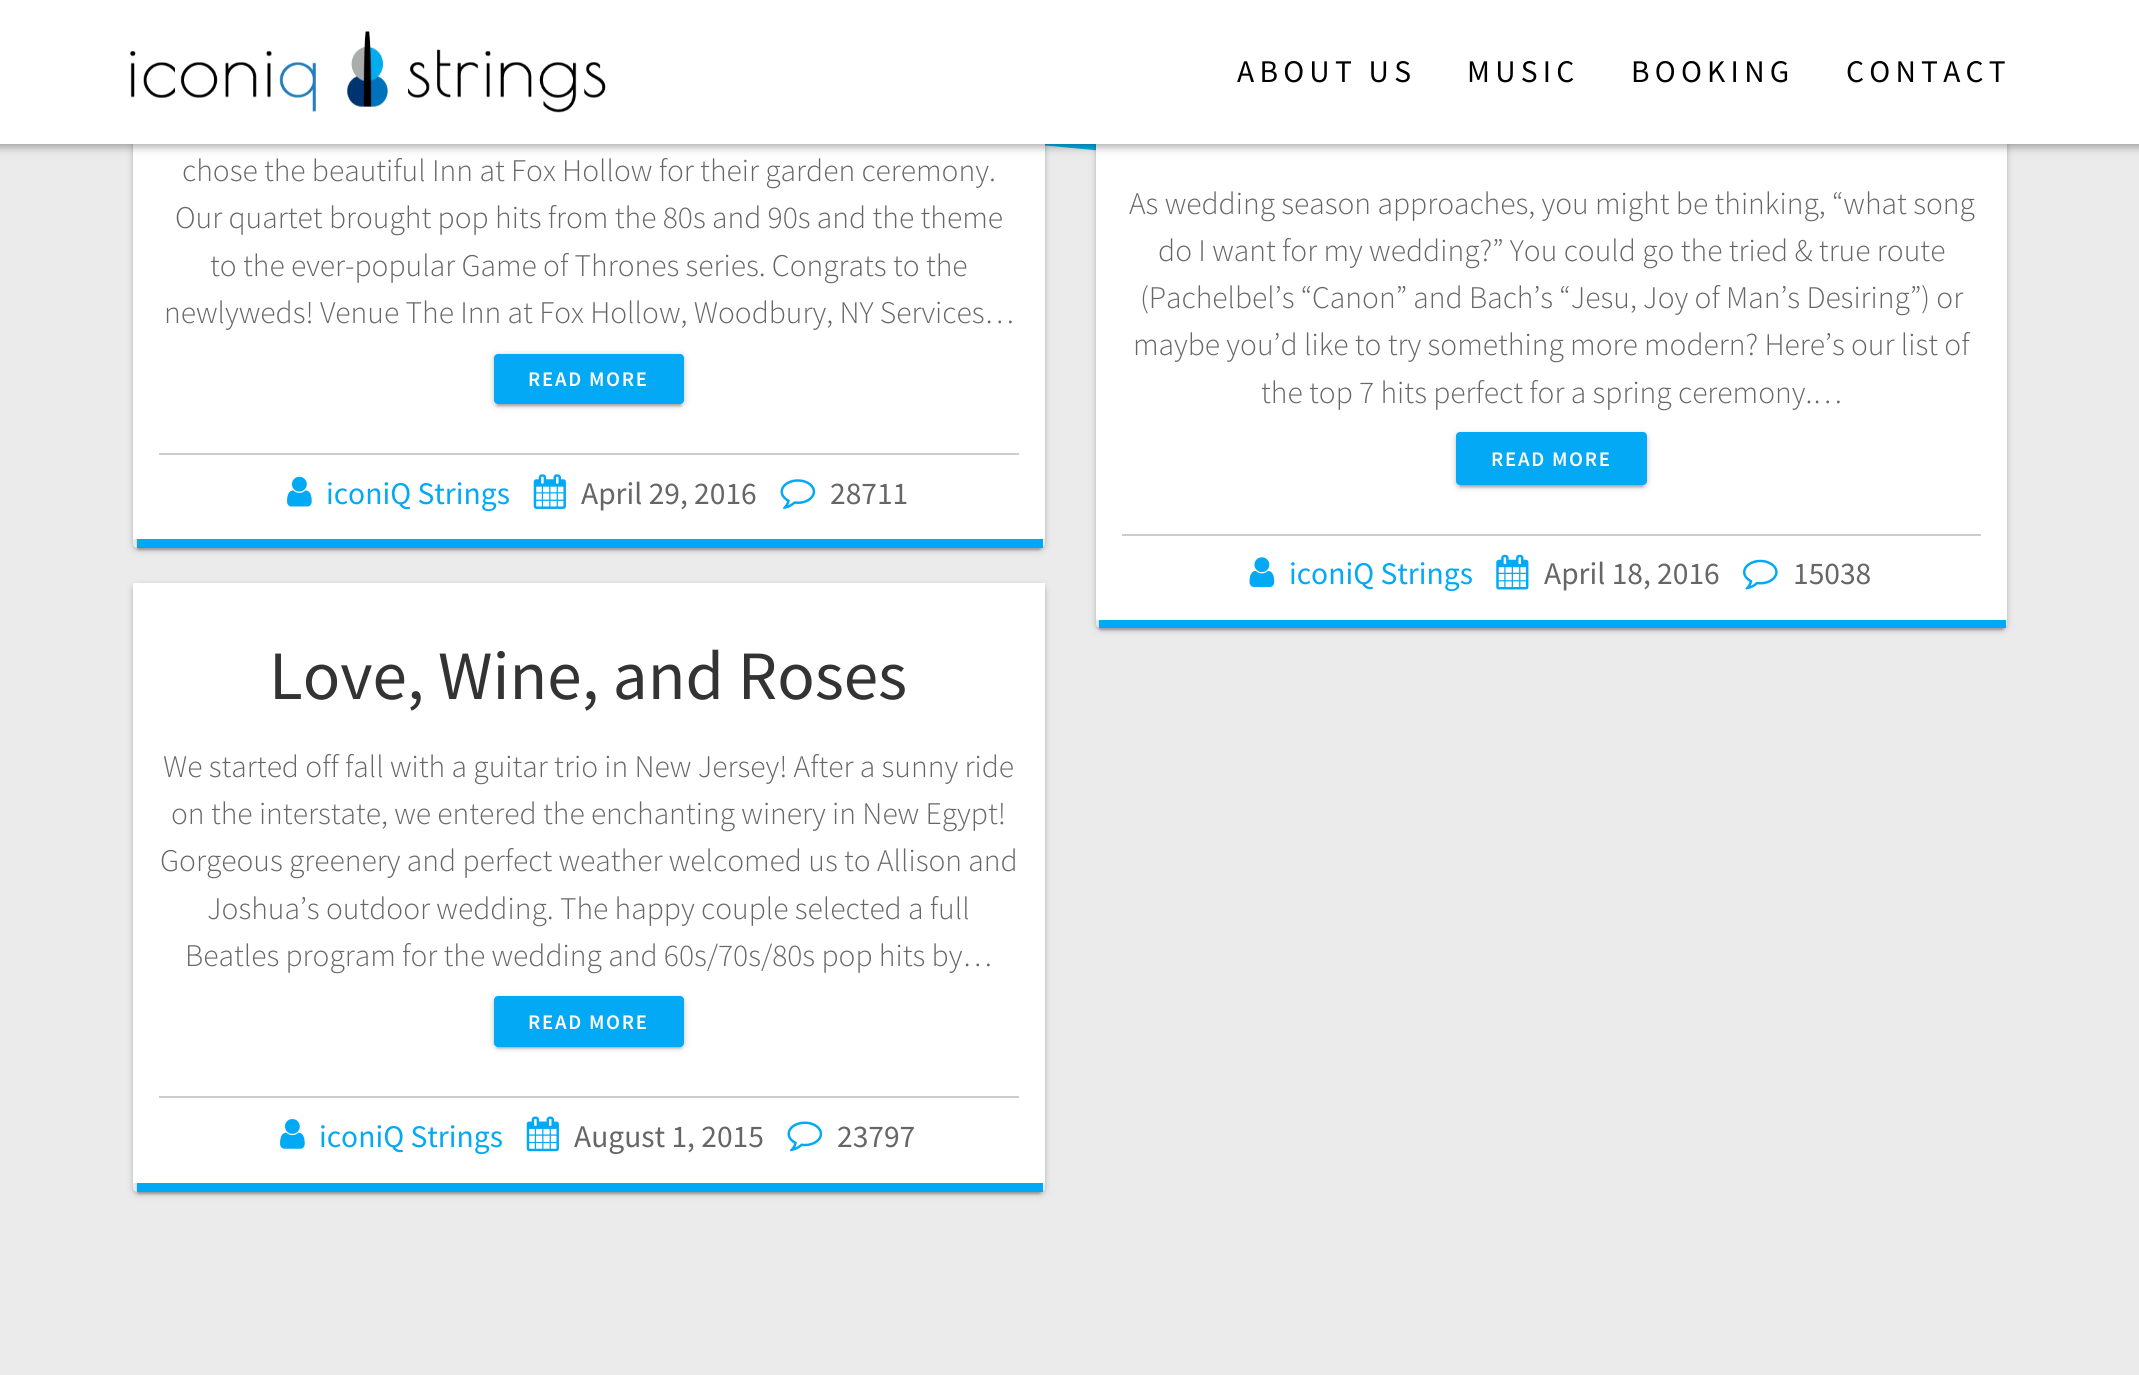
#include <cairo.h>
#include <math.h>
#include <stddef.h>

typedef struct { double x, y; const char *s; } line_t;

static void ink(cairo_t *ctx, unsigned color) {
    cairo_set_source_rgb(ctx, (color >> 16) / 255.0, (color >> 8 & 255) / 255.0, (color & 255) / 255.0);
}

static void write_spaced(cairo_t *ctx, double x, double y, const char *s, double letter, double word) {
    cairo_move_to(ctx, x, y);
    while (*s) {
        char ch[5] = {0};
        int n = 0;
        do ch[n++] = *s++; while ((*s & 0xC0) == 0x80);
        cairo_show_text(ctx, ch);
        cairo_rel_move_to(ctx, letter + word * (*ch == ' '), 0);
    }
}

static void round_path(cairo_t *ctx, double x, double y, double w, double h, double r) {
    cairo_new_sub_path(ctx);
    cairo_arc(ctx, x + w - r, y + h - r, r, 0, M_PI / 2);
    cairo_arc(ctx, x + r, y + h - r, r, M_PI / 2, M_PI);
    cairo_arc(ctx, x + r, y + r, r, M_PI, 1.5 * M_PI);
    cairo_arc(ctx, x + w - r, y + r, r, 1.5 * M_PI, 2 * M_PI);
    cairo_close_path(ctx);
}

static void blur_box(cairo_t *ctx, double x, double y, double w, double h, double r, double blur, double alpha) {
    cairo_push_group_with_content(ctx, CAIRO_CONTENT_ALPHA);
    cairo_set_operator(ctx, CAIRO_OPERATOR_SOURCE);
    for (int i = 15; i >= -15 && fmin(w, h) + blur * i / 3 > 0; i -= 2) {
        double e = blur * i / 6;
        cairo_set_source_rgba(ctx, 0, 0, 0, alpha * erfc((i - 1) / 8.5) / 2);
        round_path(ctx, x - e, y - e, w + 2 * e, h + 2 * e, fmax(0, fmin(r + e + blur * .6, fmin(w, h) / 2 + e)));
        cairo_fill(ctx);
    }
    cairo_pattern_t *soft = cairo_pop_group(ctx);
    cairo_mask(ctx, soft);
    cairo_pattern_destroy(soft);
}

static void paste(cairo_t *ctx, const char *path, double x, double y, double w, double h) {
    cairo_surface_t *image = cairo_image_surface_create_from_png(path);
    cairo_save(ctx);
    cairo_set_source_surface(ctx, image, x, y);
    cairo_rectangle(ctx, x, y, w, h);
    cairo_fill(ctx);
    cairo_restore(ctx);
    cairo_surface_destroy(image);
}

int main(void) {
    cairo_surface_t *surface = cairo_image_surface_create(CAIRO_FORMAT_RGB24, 2139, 1375);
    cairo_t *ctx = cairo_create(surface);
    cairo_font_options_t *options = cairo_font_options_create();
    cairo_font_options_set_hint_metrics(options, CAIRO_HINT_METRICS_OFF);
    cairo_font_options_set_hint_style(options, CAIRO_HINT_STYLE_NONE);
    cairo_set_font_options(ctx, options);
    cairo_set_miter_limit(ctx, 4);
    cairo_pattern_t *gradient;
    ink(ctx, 0xFFFFFF);
    cairo_paint(ctx);
    gradient = cairo_pattern_create_linear(1070, -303, 1070, 203);
    cairo_pattern_add_color_stop_rgba(gradient, 0, 0.008, 0, 0.141, 1);
    cairo_pattern_add_color_stop_rgba(gradient, 0.35, 0.035, 0.035, 0.475, 1);
    cairo_pattern_add_color_stop_rgba(gradient, 1, 0, 0.831, 1, 1);
    cairo_set_source(ctx, gradient);
    cairo_pattern_destroy(gradient);
    cairo_rectangle(ctx, 1045, 144, 51, 7);
    cairo_fill(ctx);
    ink(ctx, 0xEBEBEB);
    cairo_new_path(ctx);
    cairo_move_to(ctx, 1581, 196);
    cairo_line_to(ctx, 0, 47);
    cairo_line_to(ctx, 0, 205);
    cairo_line_to(ctx, 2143, 205);
    cairo_line_to(ctx, 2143, 47);
    cairo_close_path(ctx);
    cairo_fill(ctx);
    cairo_rectangle(ctx, 0, 205, 2139, 1170);
    cairo_fill(ctx);
    cairo_save(ctx);
    cairo_set_fill_rule(ctx, CAIRO_FILL_RULE_EVEN_ODD);
    cairo_new_path(ctx);
    cairo_move_to(ctx, 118, 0);
    cairo_line_to(ctx, 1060, 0);
    cairo_line_to(ctx, 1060, 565);
    cairo_line_to(ctx, 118, 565);
    cairo_close_path(ctx);
    cairo_move_to(ctx, 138, -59);
    cairo_line_to(ctx, 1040, -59);
    cairo_curve_to(ctx, 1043, -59, 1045, -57, 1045, -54);
    cairo_line_to(ctx, 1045, 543);
    cairo_curve_to(ctx, 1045, 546, 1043, 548, 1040, 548);
    cairo_line_to(ctx, 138, 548);
    cairo_curve_to(ctx, 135, 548, 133, 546, 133, 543);
    cairo_line_to(ctx, 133, -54);
    cairo_curve_to(ctx, 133, -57, 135, -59, 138, -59);
    cairo_close_path(ctx);
    cairo_clip(ctx);
    ink(ctx, 0x000000);
    blur_box(ctx, 133, -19, 912, 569, 5, 4.5, 0.12);
    cairo_restore(ctx);
    ink(ctx, 0x000000);
    blur_box(ctx, 137, -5, 904, 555, 2, 1, 0.2);
    cairo_save(ctx);
    cairo_set_fill_rule(ctx, CAIRO_FILL_RULE_EVEN_ODD);
    cairo_new_path(ctx);
    cairo_move_to(ctx, 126, 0);
    cairo_line_to(ctx, 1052, 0);
    cairo_line_to(ctx, 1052, 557);
    cairo_line_to(ctx, 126, 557);
    cairo_close_path(ctx);
    cairo_move_to(ctx, 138, -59);
    cairo_line_to(ctx, 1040, -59);
    cairo_curve_to(ctx, 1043, -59, 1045, -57, 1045, -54);
    cairo_line_to(ctx, 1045, 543);
    cairo_curve_to(ctx, 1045, 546, 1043, 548, 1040, 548);
    cairo_line_to(ctx, 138, 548);
    cairo_curve_to(ctx, 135, 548, 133, 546, 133, 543);
    cairo_line_to(ctx, 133, -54);
    cairo_curve_to(ctx, 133, -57, 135, -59, 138, -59);
    cairo_close_path(ctx);
    cairo_clip(ctx);
    blur_box(ctx, 133, -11, 912, 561, 5, 2, 0.14);
    cairo_restore(ctx);
    ink(ctx, 0xFFFFFF);
    cairo_rectangle(ctx, 133, 144, 912, 395);
    cairo_fill(ctx);
    cairo_save(ctx);
    cairo_set_fill_rule(ctx, CAIRO_FILL_RULE_EVEN_ODD);
    cairo_new_path(ctx);
    cairo_move_to(ctx, 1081, 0);
    cairo_line_to(ctx, 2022, 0);
    cairo_line_to(ctx, 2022, 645);
    cairo_line_to(ctx, 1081, 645);
    cairo_close_path(ctx);
    cairo_move_to(ctx, 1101, -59);
    cairo_line_to(ctx, 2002, -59);
    cairo_curve_to(ctx, 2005, -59, 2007, -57, 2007, -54);
    cairo_line_to(ctx, 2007, 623);
    cairo_curve_to(ctx, 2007, 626, 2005, 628, 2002, 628);
    cairo_line_to(ctx, 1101, 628);
    cairo_curve_to(ctx, 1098, 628, 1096, 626, 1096, 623);
    cairo_line_to(ctx, 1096, -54);
    cairo_curve_to(ctx, 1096, -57, 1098, -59, 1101, -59);
    cairo_close_path(ctx);
    cairo_clip(ctx);
    ink(ctx, 0x000000);
    blur_box(ctx, 1096, -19, 911, 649, 5, 4.5, 0.12);
    cairo_restore(ctx);
    ink(ctx, 0x000000);
    blur_box(ctx, 1099, -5, 905, 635, 2, 1, 0.2);
    cairo_save(ctx);
    cairo_set_fill_rule(ctx, CAIRO_FILL_RULE_EVEN_ODD);
    cairo_new_path(ctx);
    cairo_move_to(ctx, 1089, 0);
    cairo_line_to(ctx, 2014, 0);
    cairo_line_to(ctx, 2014, 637);
    cairo_line_to(ctx, 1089, 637);
    cairo_close_path(ctx);
    cairo_move_to(ctx, 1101, -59);
    cairo_line_to(ctx, 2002, -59);
    cairo_curve_to(ctx, 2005, -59, 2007, -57, 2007, -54);
    cairo_line_to(ctx, 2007, 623);
    cairo_curve_to(ctx, 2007, 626, 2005, 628, 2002, 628);
    cairo_line_to(ctx, 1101, 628);
    cairo_curve_to(ctx, 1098, 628, 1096, 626, 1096, 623);
    cairo_line_to(ctx, 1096, -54);
    cairo_curve_to(ctx, 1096, -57, 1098, -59, 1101, -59);
    cairo_close_path(ctx);
    cairo_clip(ctx);
    blur_box(ctx, 1096, -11, 911, 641, 5, 2, 0.14);
    cairo_restore(ctx);
    ink(ctx, 0xFFFFFF);
    cairo_rectangle(ctx, 1096, 144, 911, 476);
    cairo_fill(ctx);
    ink(ctx, 0x000000);
    blur_box(ctx, -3, -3, 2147, 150, 0, 4.5, 0.33);
    ink(ctx, 0xFFFFFF);
    cairo_rectangle(ctx, 0, 0, 2139, 144);
    cairo_fill(ctx);
    paste(ctx, "media/1.png", 130, 31, 476, 82);
    cairo_select_font_face(ctx, "Source Sans Pro", CAIRO_FONT_SLANT_NORMAL, CAIRO_FONT_WEIGHT_NORMAL);
    cairo_set_font_size(ctx, 31.5);
    ink(ctx, 0x000000);
    {
        static const line_t items[] = {
            {1237, 82, "ABOUT US"},
            {1467, 82, "MUSIC"},
            {1631, 82, "BOOKING"},
            {1846, 82, "CONTACT"},
        };
        for (size_t i = 0; i < sizeof items / sizeof *items; i++) {
            write_spaced(ctx, items[i].x, items[i].y, items[i].s, 5.25, 0);
        }
    }
    ink(ctx, 0x03A8F4);
    cairo_rectangle(ctx, 137, 539, 906, 9);
    cairo_fill(ctx);
    cairo_select_font_face(ctx, "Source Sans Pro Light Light", CAIRO_FONT_SLANT_NORMAL, CAIRO_FONT_WEIGHT_NORMAL);
    ink(ctx, 0x666666);
    {
        static const line_t items[] = {
            {182, 181, "chose the beautiful Inn at Fox Hollow for their garden ceremony."},
            {175, 228, "Our quartet brought pop hits from the 80s and 90s and the theme"},
            {210, 276, "to the ever-popular Game of Thrones series. Congrats to the"},
            {164, 323, "newlyweds! Venue The Inn at Fox Hollow, Woodbury, NY Services…"},
        };
        for (size_t i = 0; i < sizeof items / sizeof *items; i++) {
            cairo_move_to(ctx, items[i].x, items[i].y);
            cairo_show_text(ctx, items[i].s);
        }
    }
    ink(ctx, 0x000000);
    blur_box(ctx, 494, 355, 190, 51, 4, 4.5, 0.12);
    blur_box(ctx, 497, 362, 184, 44, 0, 1, 0.2);
    blur_box(ctx, 494, 355, 190, 51, 4, 2, 0.14);
    ink(ctx, 0x03A9F4);
    round_path(ctx, 494, 354, 190, 50, 4);
    cairo_fill(ctx);
    cairo_select_font_face(ctx, "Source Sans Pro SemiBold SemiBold", CAIRO_FONT_SLANT_NORMAL, CAIRO_FONT_WEIGHT_NORMAL);
    cairo_set_font_size(ctx, 20.75);
    ink(ctx, 0xFFFFFF);
    write_spaced(ctx, 528, 386, "READ MORE", 1.75, 0);
    ink(ctx, 0xCCCCCC);
    cairo_rectangle(ctx, 159, 453, 860, 2);
    cairo_fill(ctx);
    paste(ctx, "media/2.png", 287, 476, 25, 31);
    cairo_select_font_face(ctx, "Source Sans Pro", CAIRO_FONT_SLANT_NORMAL, CAIRO_FONT_WEIGHT_NORMAL);
    cairo_set_font_size(ctx, 31.5);
    ink(ctx, 0x03A9F4);
    cairo_move_to(ctx, 326, 504);
    cairo_show_text(ctx, "iconiQ Strings");
    paste(ctx, "media/3.png", 533, 474, 33, 35);
    ink(ctx, 0x666666);
    cairo_move_to(ctx, 581, 504);
    cairo_show_text(ctx, "April 29, 2016");
    paste(ctx, "media/4.png", 780, 479, 36, 30);
    cairo_move_to(ctx, 830, 504);
    cairo_show_text(ctx, "28711");
    ink(ctx, 0x03A8F4);
    cairo_rectangle(ctx, 1099, 620, 907, 8);
    cairo_fill(ctx);
    cairo_select_font_face(ctx, "Source Sans Pro Light Light", CAIRO_FONT_SLANT_NORMAL, CAIRO_FONT_WEIGHT_NORMAL);
    ink(ctx, 0x666666);
    {
        static const line_t items[] = {
            {1129, 214, "As wedding season approaches, you might be thinking, “what song"},
            {1158, 261, "do I want for my wedding?” You could go the tried & true route"},
            {1140, 308, "(Pachelbel’s “Canon” and Bach’s “Jesu, Joy of Man’s Desiring”) or"},
            {1133, 355, "maybe you’d like to try something more modern? Here’s our list of"},
            {1261, 403, "the top 7 hits perfect for a spring ceremony.…"},
        };
        for (size_t i = 0; i < sizeof items / sizeof *items; i++) {
            cairo_move_to(ctx, items[i].x, items[i].y);
            cairo_show_text(ctx, items[i].s);
        }
    }
    ink(ctx, 0x000000);
    blur_box(ctx, 1456, 434, 191, 53, 4, 4.5, 0.12);
    blur_box(ctx, 1460, 441, 183, 46, 0, 1, 0.2);
    blur_box(ctx, 1456, 434, 191, 53, 4, 2, 0.14);
    ink(ctx, 0x03A9F4);
    round_path(ctx, 1456, 432, 191, 53, 4);
    cairo_fill(ctx);
    cairo_select_font_face(ctx, "Source Sans Pro SemiBold SemiBold", CAIRO_FONT_SLANT_NORMAL, CAIRO_FONT_WEIGHT_NORMAL);
    cairo_set_font_size(ctx, 20.75);
    ink(ctx, 0xFFFFFF);
    write_spaced(ctx, 1491, 466, "READ MORE", 1.75, 0);
    ink(ctx, 0xCCCCCC);
    cairo_rectangle(ctx, 1122, 534, 859, 2);
    cairo_fill(ctx);
    paste(ctx, "media/5.png", 1249, 557, 26, 30);
    cairo_select_font_face(ctx, "Source Sans Pro", CAIRO_FONT_SLANT_NORMAL, CAIRO_FONT_WEIGHT_NORMAL);
    cairo_set_font_size(ctx, 31.5);
    ink(ctx, 0x03A9F4);
    cairo_move_to(ctx, 1289, 584);
    cairo_show_text(ctx, "iconiQ Strings");
    paste(ctx, "media/6.png", 1496, 554, 33, 36);
    ink(ctx, 0x666666);
    cairo_move_to(ctx, 1544, 584);
    cairo_show_text(ctx, "April 18, 2016");
    paste(ctx, "media/7.png", 1743, 559, 35, 31);
    cairo_move_to(ctx, 1793, 584);
    cairo_show_text(ctx, "15038");
    cairo_save(ctx);
    cairo_set_fill_rule(ctx, CAIRO_FILL_RULE_EVEN_ODD);
    cairo_new_path(ctx);
    cairo_move_to(ctx, 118, 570);
    cairo_line_to(ctx, 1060, 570);
    cairo_line_to(ctx, 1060, 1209);
    cairo_line_to(ctx, 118, 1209);
    cairo_close_path(ctx);
    cairo_move_to(ctx, 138, 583);
    cairo_line_to(ctx, 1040, 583);
    cairo_curve_to(ctx, 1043, 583, 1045, 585, 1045, 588);
    cairo_line_to(ctx, 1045, 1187);
    cairo_curve_to(ctx, 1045, 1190, 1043, 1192, 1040, 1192);
    cairo_line_to(ctx, 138, 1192);
    cairo_curve_to(ctx, 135, 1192, 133, 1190, 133, 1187);
    cairo_line_to(ctx, 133, 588);
    cairo_curve_to(ctx, 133, 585, 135, 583, 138, 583);
    cairo_close_path(ctx);
    cairo_clip(ctx);
    ink(ctx, 0x000000);
    blur_box(ctx, 133, 585, 912, 609, 5, 4.5, 0.12);
    cairo_restore(ctx);
    ink(ctx, 0x000000);
    blur_box(ctx, 137, 592, 904, 602, 2, 1, 0.2);
    cairo_save(ctx);
    cairo_set_fill_rule(ctx, CAIRO_FILL_RULE_EVEN_ODD);
    cairo_new_path(ctx);
    cairo_move_to(ctx, 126, 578);
    cairo_line_to(ctx, 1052, 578);
    cairo_line_to(ctx, 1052, 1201);
    cairo_line_to(ctx, 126, 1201);
    cairo_close_path(ctx);
    cairo_move_to(ctx, 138, 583);
    cairo_line_to(ctx, 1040, 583);
    cairo_curve_to(ctx, 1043, 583, 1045, 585, 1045, 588);
    cairo_line_to(ctx, 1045, 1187);
    cairo_curve_to(ctx, 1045, 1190, 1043, 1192, 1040, 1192);
    cairo_line_to(ctx, 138, 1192);
    cairo_curve_to(ctx, 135, 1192, 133, 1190, 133, 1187);
    cairo_line_to(ctx, 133, 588);
    cairo_curve_to(ctx, 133, 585, 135, 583, 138, 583);
    cairo_close_path(ctx);
    cairo_clip(ctx);
    blur_box(ctx, 133, 585, 912, 609, 5, 2, 0.14);
    cairo_restore(ctx);
    ink(ctx, 0x03A8F4);
    cairo_rectangle(ctx, 137, 1183, 906, 9);
    cairo_fill(ctx);
    ink(ctx, 0xFFFFFF);
    cairo_rectangle(ctx, 133, 583, 912, 600);
    cairo_fill(ctx);
    cairo_set_font_size(ctx, 69.25);
    ink(ctx, 0x333333);
    cairo_move_to(ctx, 269, 699);
    cairo_show_text(ctx, "Love, Wine, and Roses");
    cairo_select_font_face(ctx, "Source Sans Pro Light Light", CAIRO_FONT_SLANT_NORMAL, CAIRO_FONT_WEIGHT_NORMAL);
    cairo_set_font_size(ctx, 31.5);
    ink(ctx, 0x666666);
    {
        static const line_t items[] = {
            {163, 777, "We started off fall with a guitar trio in New Jersey! After a sunny ride"},
            {171, 824, "on the interstate, we entered the enchanting winery in New Egypt!"},
            {160, 871, "Gorgeous greenery and perfect weather welcomed us to Allison and"},
            {207, 919, "Joshua’s outdoor wedding. The happy couple selected a full"},
            {185, 966, "Beatles program for the wedding and 60s/70s/80s pop hits by…"},
        };
        for (size_t i = 0; i < sizeof items / sizeof *items; i++) {
            cairo_move_to(ctx, items[i].x, items[i].y);
            cairo_show_text(ctx, items[i].s);
        }
    }
    ink(ctx, 0x000000);
    blur_box(ctx, 494, 998, 190, 50, 4, 4.5, 0.12);
    blur_box(ctx, 497, 1005, 184, 43, 0, 1, 0.2);
    blur_box(ctx, 494, 998, 190, 50, 4, 2, 0.14);
    ink(ctx, 0x03A9F4);
    round_path(ctx, 494, 996, 190, 51, 4);
    cairo_fill(ctx);
    cairo_select_font_face(ctx, "Source Sans Pro SemiBold SemiBold", CAIRO_FONT_SLANT_NORMAL, CAIRO_FONT_WEIGHT_NORMAL);
    cairo_set_font_size(ctx, 20.75);
    ink(ctx, 0xFFFFFF);
    write_spaced(ctx, 528, 1029, "READ MORE", 1.75, 0);
    ink(ctx, 0xCCCCCC);
    cairo_rectangle(ctx, 159, 1096, 860, 2);
    cairo_fill(ctx);
    paste(ctx, "media/8.png", 280, 1119, 25, 30);
    cairo_select_font_face(ctx, "Source Sans Pro", CAIRO_FONT_SLANT_NORMAL, CAIRO_FONT_WEIGHT_NORMAL);
    cairo_set_font_size(ctx, 31.5);
    ink(ctx, 0x03A9F4);
    cairo_move_to(ctx, 319, 1147);
    cairo_show_text(ctx, "iconiQ Strings");
    paste(ctx, "media/9.png", 526, 1116, 33, 36);
    ink(ctx, 0x666666);
    cairo_move_to(ctx, 574, 1147);
    cairo_show_text(ctx, "August 1, 2015");
    paste(ctx, "media/10.png", 787, 1121, 36, 31);
    cairo_move_to(ctx, 837, 1147);
    cairo_show_text(ctx, "23797");
    cairo_surface_write_to_png(surface, "image.png");
    cairo_font_options_destroy(options);
    cairo_destroy(ctx);
    cairo_surface_destroy(surface);
    return 0;
}
